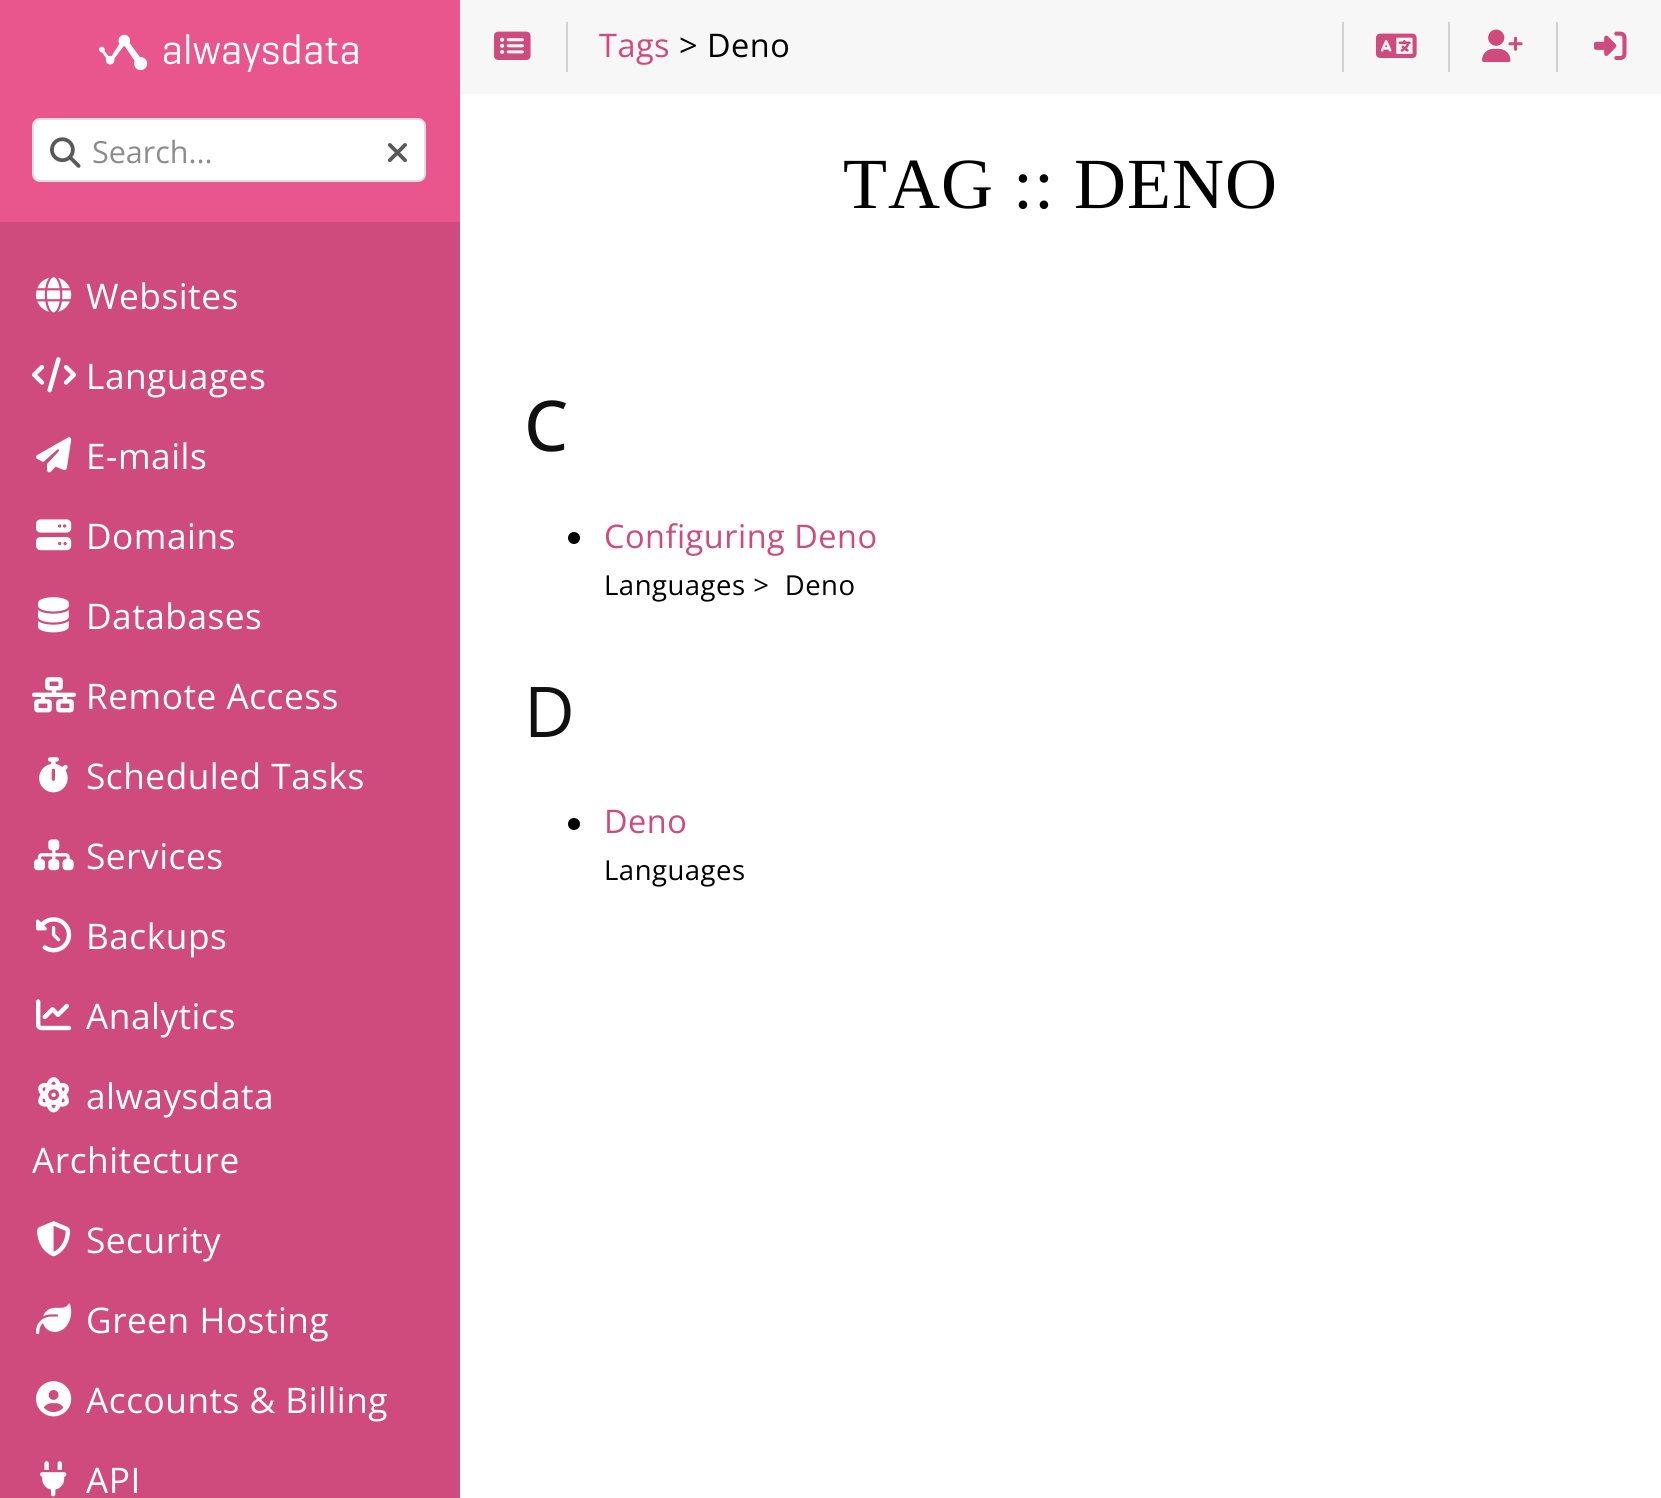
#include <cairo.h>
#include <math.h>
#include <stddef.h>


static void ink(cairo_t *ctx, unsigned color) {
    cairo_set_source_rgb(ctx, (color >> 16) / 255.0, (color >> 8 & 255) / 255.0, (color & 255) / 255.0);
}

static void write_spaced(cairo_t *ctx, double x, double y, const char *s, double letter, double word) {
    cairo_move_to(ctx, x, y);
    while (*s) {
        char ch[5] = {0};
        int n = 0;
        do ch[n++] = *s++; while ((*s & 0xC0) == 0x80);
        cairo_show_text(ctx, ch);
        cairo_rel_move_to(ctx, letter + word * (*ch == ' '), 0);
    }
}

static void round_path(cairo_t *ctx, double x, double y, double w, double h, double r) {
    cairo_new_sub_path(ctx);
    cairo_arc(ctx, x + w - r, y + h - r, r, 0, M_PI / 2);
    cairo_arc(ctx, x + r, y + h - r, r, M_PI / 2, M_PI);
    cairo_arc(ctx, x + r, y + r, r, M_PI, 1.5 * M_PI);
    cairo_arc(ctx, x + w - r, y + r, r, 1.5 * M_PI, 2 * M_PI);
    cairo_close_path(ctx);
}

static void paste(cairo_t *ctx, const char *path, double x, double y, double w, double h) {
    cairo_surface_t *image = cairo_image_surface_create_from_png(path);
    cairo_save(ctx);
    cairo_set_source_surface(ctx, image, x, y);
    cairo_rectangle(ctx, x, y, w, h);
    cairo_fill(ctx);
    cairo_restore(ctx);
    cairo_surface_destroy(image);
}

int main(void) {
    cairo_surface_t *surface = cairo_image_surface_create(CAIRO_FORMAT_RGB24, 1661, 1498);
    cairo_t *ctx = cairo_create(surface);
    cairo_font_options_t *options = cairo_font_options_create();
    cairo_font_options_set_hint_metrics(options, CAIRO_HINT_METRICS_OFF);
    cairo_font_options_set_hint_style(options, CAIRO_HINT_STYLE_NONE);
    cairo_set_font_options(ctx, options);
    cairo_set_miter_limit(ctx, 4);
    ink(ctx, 0xFFFFFF);
    cairo_paint(ctx);
    ink(ctx, 0xCF4A7D);
    cairo_rectangle(ctx, 0, 222, 460, 1276);
    cairo_fill(ctx);
    ink(ctx, 0xE9568E);
    cairo_rectangle(ctx, 0, 0, 460, 222);
    cairo_fill(ctx);
    paste(ctx, "media/1.png", 99, 34, 259, 38);
    ink(ctx, 0xFFFFFF);
    round_path(ctx, 33, 119, 392, 62, 7);
    cairo_fill_preserve(ctx);
    ink(ctx, 0xE0E0E0);
    cairo_stroke(ctx);
    paste(ctx, "media/2.png", 50, 137, 31, 31);
    cairo_select_font_face(ctx, "Open Sans", CAIRO_FONT_SLANT_NORMAL, CAIRO_FONT_WEIGHT_NORMAL);
    cairo_set_font_size(ctx, 30.5);
    ink(ctx, 0x8C8C8C);
    cairo_move_to(ctx, 92, 163);
    cairo_show_text(ctx, "Search...");
    paste(ctx, "media/3.png", 387, 143, 20, 20);
    paste(ctx, "media/4.png", 36, 277, 36, 36);
    cairo_set_font_size(ctx, 35.25);
    ink(ctx, 0xFFFFFF);
    write_spaced(ctx, 86, 309, "Websites", 0.5, 0);
    paste(ctx, "media/5.png", 32, 357, 44, 36);
    write_spaced(ctx, 86, 389, "Languages", 0.5, 0);
    paste(ctx, "media/6.png", 36, 437, 36, 36);
    write_spaced(ctx, 86, 469, "E-mails", 0.5, 0);
    paste(ctx, "media/7.png", 36, 519, 36, 32);
    write_spaced(ctx, 86, 549, "Domains", 0.5, 0);
    paste(ctx, "media/8.png", 38, 597, 31, 36);
    write_spaced(ctx, 86, 629, "Databases", 0.5, 0);
    paste(ctx, "media/9.png", 32, 677, 44, 36);
    write_spaced(ctx, 86, 709, "Remote Access", 0.5, 0);
    paste(ctx, "media/10.png", 39, 757, 29, 36);
    write_spaced(ctx, 86, 789, "Scheduled Tasks", 0.5, 0);
    paste(ctx, "media/11.png", 34, 839, 40, 32);
    write_spaced(ctx, 86, 869, "Services", 0.5, 0);
    paste(ctx, "media/12.png", 36, 917, 36, 36);
    write_spaced(ctx, 86, 949, "Backups", 0.5, 0);
    paste(ctx, "media/13.png", 36, 999, 36, 32);
    write_spaced(ctx, 86, 1029, "Analytics", 0.5, 0);
    paste(ctx, "media/14.png", 38, 1077, 31, 36);
    write_spaced(ctx, 86, 1109, "alwaysdata", 0.5, 0);
    write_spaced(ctx, 32, 1173, "Architecture", 0.5, 0);
    paste(ctx, "media/15.png", 37, 1221, 34, 36);
    write_spaced(ctx, 86, 1253, "Security", 0.5, 0);
    paste(ctx, "media/16.png", 36, 1303, 36, 32);
    write_spaced(ctx, 86, 1333, "Green Hosting", 0.5, 0);
    paste(ctx, "media/17.png", 36, 1381, 36, 36);
    write_spaced(ctx, 86, 1413, "Accounts & Billing", 0.5, 0);
    paste(ctx, "media/18.png", 40, 1461, 27, 36);
    write_spaced(ctx, 86, 1493, "API", 0.5, 0);
    ink(ctx, 0xF7F7F7);
    cairo_rectangle(ctx, 460, 0, 1201, 94);
    cairo_fill(ctx);
    ink(ctx, 0xD1D1D1);
    cairo_rectangle(ctx, 566, 22, 2, 50);
    cairo_fill(ctx);
    paste(ctx, "media/19.png", 494, 31, 37, 29);
    cairo_set_font_size(ctx, 32.5);
    ink(ctx, 0xCF4A7D);
    write_spaced(ctx, 599, 57, "Tags", 0.5, 0);
    ink(ctx, 0x000000);
    write_spaced(ctx, 679, 57, "> Deno", 0.5, 0);
    ink(ctx, 0xD1D1D1);
    cairo_rectangle(ctx, 1342, 22, 2, 50);
    cairo_fill(ctx);
    paste(ctx, "media/20.png", 1376, 33, 41, 25);
    cairo_rectangle(ctx, 1448, 22, 2, 50);
    cairo_fill(ctx);
    paste(ctx, "media/21.png", 1482, 29, 41, 34);
    cairo_rectangle(ctx, 1556, 22, 2, 50);
    cairo_fill(ctx);
    paste(ctx, "media/22.png", 1594, 31, 33, 29);
    cairo_select_font_face(ctx, "Liberation Serif", CAIRO_FONT_SLANT_NORMAL, CAIRO_FONT_WEIGHT_NORMAL);
    cairo_set_font_size(ctx, 72);
    ink(ctx, 0x000000);
    write_spaced(ctx, 843, 208, "TAG :: DENO", 1, 0);
    cairo_select_font_face(ctx, "Open Sans Medium", CAIRO_FONT_SLANT_NORMAL, CAIRO_FONT_WEIGHT_NORMAL);
    cairo_set_font_size(ctx, 70);
    ink(ctx, 0x101010);
    write_spaced(ctx, 524, 451, "C", 1, 0);
    ink(ctx, 0x000000);
    cairo_new_path(ctx);
    cairo_arc(ctx, 574, 538, 6, 0, 2 * M_PI);
    cairo_fill(ctx);
    cairo_select_font_face(ctx, "Open Sans", CAIRO_FONT_SLANT_NORMAL, CAIRO_FONT_WEIGHT_NORMAL);
    cairo_set_font_size(ctx, 32.5);
    ink(ctx, 0xCF4A7D);
    write_spaced(ctx, 604, 548, "Configuring Deno", 0.5, 0);
    cairo_set_font_size(ctx, 27.5);
    ink(ctx, 0x000000);
    write_spaced(ctx, 604, 595, "Languages >  Deno", 0.5, 0);
    cairo_set_font_size(ctx, 70);
    ink(ctx, 0x101010);
    write_spaced(ctx, 524, 737, "D", 1, 0);
    ink(ctx, 0x000000);
    cairo_new_path(ctx);
    cairo_arc(ctx, 574, 824, 6, 0, 2 * M_PI);
    cairo_fill(ctx);
    cairo_set_font_size(ctx, 32.5);
    ink(ctx, 0xCF4A7D);
    write_spaced(ctx, 604, 833, "Deno", 0.5, 0);
    cairo_set_font_size(ctx, 27.5);
    ink(ctx, 0x000000);
    write_spaced(ctx, 604, 880, "Languages", 0.5, 0);
    cairo_surface_write_to_png(surface, "image.png");
    cairo_font_options_destroy(options);
    cairo_destroy(ctx);
    cairo_surface_destroy(surface);
    return 0;
}
